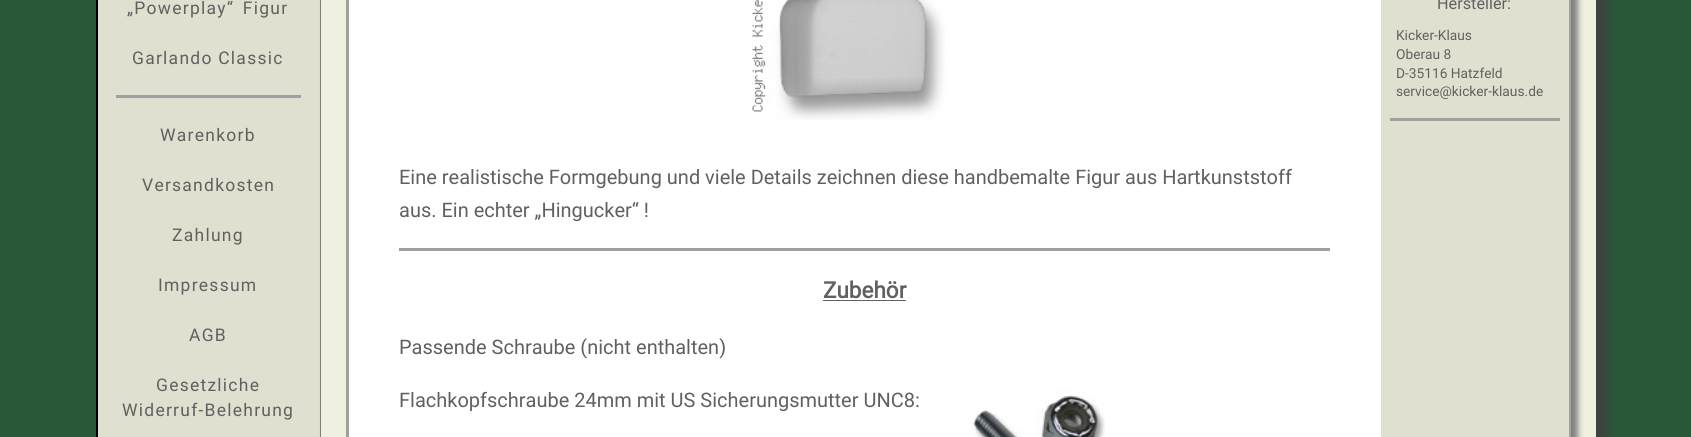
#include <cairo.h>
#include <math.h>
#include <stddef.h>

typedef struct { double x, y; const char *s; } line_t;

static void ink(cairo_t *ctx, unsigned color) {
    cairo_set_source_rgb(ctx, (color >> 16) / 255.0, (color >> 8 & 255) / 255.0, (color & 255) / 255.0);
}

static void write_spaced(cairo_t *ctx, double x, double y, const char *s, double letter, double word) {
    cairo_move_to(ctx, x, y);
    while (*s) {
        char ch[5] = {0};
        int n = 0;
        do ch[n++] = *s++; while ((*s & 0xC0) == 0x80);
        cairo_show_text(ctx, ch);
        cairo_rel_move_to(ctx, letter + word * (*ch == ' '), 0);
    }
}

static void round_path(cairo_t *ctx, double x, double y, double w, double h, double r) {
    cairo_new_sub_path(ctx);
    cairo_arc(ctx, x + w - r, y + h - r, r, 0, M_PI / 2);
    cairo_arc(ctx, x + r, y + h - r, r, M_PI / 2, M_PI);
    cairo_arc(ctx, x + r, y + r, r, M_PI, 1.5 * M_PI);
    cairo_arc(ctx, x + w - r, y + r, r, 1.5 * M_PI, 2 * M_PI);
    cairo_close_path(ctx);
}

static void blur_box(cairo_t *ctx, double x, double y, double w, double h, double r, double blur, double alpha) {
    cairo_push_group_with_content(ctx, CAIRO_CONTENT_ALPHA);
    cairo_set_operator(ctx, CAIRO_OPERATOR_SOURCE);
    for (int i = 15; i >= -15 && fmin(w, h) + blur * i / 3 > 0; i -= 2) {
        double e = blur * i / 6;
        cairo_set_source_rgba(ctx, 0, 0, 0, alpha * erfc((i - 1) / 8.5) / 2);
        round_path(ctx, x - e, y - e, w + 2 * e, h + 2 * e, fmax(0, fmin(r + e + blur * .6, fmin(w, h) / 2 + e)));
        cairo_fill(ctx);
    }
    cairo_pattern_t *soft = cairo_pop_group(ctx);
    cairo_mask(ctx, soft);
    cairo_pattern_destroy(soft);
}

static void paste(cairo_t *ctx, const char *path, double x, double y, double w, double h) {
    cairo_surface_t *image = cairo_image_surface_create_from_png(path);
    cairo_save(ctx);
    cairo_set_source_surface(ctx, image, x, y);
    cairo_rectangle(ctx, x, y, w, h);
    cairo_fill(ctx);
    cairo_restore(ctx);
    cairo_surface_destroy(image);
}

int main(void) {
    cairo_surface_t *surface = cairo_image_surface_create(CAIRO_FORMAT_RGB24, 1691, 437);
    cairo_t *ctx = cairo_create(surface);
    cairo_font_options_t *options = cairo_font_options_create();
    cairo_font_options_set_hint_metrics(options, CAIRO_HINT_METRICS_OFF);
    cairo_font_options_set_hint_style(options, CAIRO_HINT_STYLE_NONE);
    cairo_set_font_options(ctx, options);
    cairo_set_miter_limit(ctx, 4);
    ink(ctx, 0x285838);
    cairo_paint(ctx);
    ink(ctx, 0x404040);
    blur_box(ctx, 106, -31, 225, 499, 13, 6, 1);
    ink(ctx, 0xE0E0D0);
    cairo_rectangle(ctx, 98, 0, 222, 437);
    cairo_fill(ctx);
    ink(ctx, 0x808080);
    cairo_new_path(ctx);
    cairo_move_to(ctx, 321, -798);
    cairo_line_to(ctx, 321, 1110);
    cairo_line_to(ctx, 320, 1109);
    cairo_line_to(ctx, 320, -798);
    cairo_close_path(ctx);
    cairo_fill(ctx);
    ink(ctx, 0x000000);
    cairo_new_path(ctx);
    cairo_move_to(ctx, 96, -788);
    cairo_curve_to(ctx, 97, -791, 98, -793, 100, -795);
    cairo_line_to(ctx, 101, -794);
    cairo_curve_to(ctx, 99, -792, 98, -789, 98, -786);
    cairo_line_to(ctx, 98, 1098);
    cairo_curve_to(ctx, 98, 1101, 99, 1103, 101, 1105);
    cairo_line_to(ctx, 100, 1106);
    cairo_curve_to(ctx, 98, 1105, 97, 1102, 96, 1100);
    cairo_close_path(ctx);
    cairo_fill(ctx);
    cairo_select_font_face(ctx, "Roboto", CAIRO_FONT_SLANT_NORMAL, CAIRO_FONT_WEIGHT_NORMAL);
    cairo_set_font_size(ctx, 17.5);
    ink(ctx, 0x606060);
    write_spaced(ctx, 127, 14, "„Powerplay“ Figur", 1.25, 3);
    write_spaced(ctx, 132, 64, "Garlando Classic", 1.25, 0);
    ink(ctx, 0xA0A0A0);
    cairo_rectangle(ctx, 116, 95, 185, 3);
    cairo_fill(ctx);
    ink(ctx, 0x606060);
    {
        static const line_t items[] = {
            {160, 141, "Warenkorb"},
            {142, 191, "Versandkosten"},
            {172, 241, "Zahlung"},
            {158, 291, "Impressum"},
            {189, 341, "AGB"},
            {156, 391, "Gesetzliche"},
            {122, 416, "Widerruf-Belehrung"},
        };
        for (size_t i = 0; i < sizeof items / sizeof *items; i++) {
            write_spaced(ctx, items[i].x, items[i].y, items[i].s, 1.25, 0);
        }
    }
    ink(ctx, 0x404040);
    blur_box(ctx, 331, -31, 1275, 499, 13, 6, 1);
    ink(ctx, 0xF0F0E0);
    cairo_rectangle(ctx, 321, 0, 1275, 437);
    cairo_fill(ctx);
    ink(ctx, 0x808080);
    blur_box(ctx, 353, -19, 1225, 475, 10, 3, 1);
    ink(ctx, 0xFFFFFF);
    cairo_rectangle(ctx, 349, 0, 1032, 437);
    cairo_fill(ctx);
    cairo_rectangle(ctx, 347.5, -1.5, 1222, 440);
    ink(ctx, 0xA0A0A0);
    cairo_set_line_width(ctx, 3);
    cairo_stroke(ctx);
    paste(ctx, "media/1.png", 752, 0, 193, 120);
    ink(ctx, 0xE0E0D0);
    cairo_rectangle(ctx, 1381, 0, 188, 437);
    cairo_fill(ctx);
    cairo_set_font_size(ctx, 16.25);
    ink(ctx, 0x606060);
    cairo_move_to(ctx, 1437, 9);
    cairo_show_text(ctx, "Hersteller:");
    cairo_set_font_size(ctx, 13.75);
    {
        static const line_t items[] = {
            {1396, 40, "Kicker-Klaus"},
            {1396, 59, "Oberau 8"},
            {1396, 78, "D-35116 Hatzfeld"},
            {1396, 96, "service@kicker-klaus.de"},
        };
        for (size_t i = 0; i < sizeof items / sizeof *items; i++) {
            cairo_move_to(ctx, items[i].x, items[i].y);
            cairo_show_text(ctx, items[i].s);
        }
    }
    ink(ctx, 0xA0A0A0);
    cairo_rectangle(ctx, 1390, 118, 170, 3);
    cairo_fill(ctx);
    cairo_set_font_size(ctx, 20);
    ink(ctx, 0x606060);
    cairo_move_to(ctx, 399, 184);
    cairo_show_text(ctx, "Eine realistische Formgebung und viele Details zeichnen diese handbemalte Figur aus Hartkunststoff");
    cairo_move_to(ctx, 399, 217);
    cairo_show_text(ctx, "aus. Ein echter „Hingucker“ !");
    ink(ctx, 0xA0A0A0);
    cairo_rectangle(ctx, 399, 248, 931, 3);
    cairo_fill(ctx);
    cairo_select_font_face(ctx, "Roboto", CAIRO_FONT_SLANT_NORMAL, CAIRO_FONT_WEIGHT_BOLD);
    cairo_set_font_size(ctx, 22.5);
    ink(ctx, 0x606060);
    cairo_move_to(ctx, 823, 298);
    cairo_show_text(ctx, "Zubehör");
    cairo_rectangle(ctx, 823, 300, 83, 1);
    cairo_fill(ctx);
    cairo_select_font_face(ctx, "Roboto", CAIRO_FONT_SLANT_NORMAL, CAIRO_FONT_WEIGHT_NORMAL);
    cairo_set_font_size(ctx, 20);
    cairo_move_to(ctx, 399, 354);
    cairo_show_text(ctx, "Passende Schraube (nicht enthalten)");
    cairo_move_to(ctx, 399, 407);
    cairo_show_text(ctx, "Flachkopfschraube 24mm mit US Sicherungsmutter UNC8:");
    paste(ctx, "media/2.png", 970, 388, 135, 49);
    cairo_surface_write_to_png(surface, "image.png");
    cairo_font_options_destroy(options);
    cairo_destroy(ctx);
    cairo_surface_destroy(surface);
    return 0;
}
